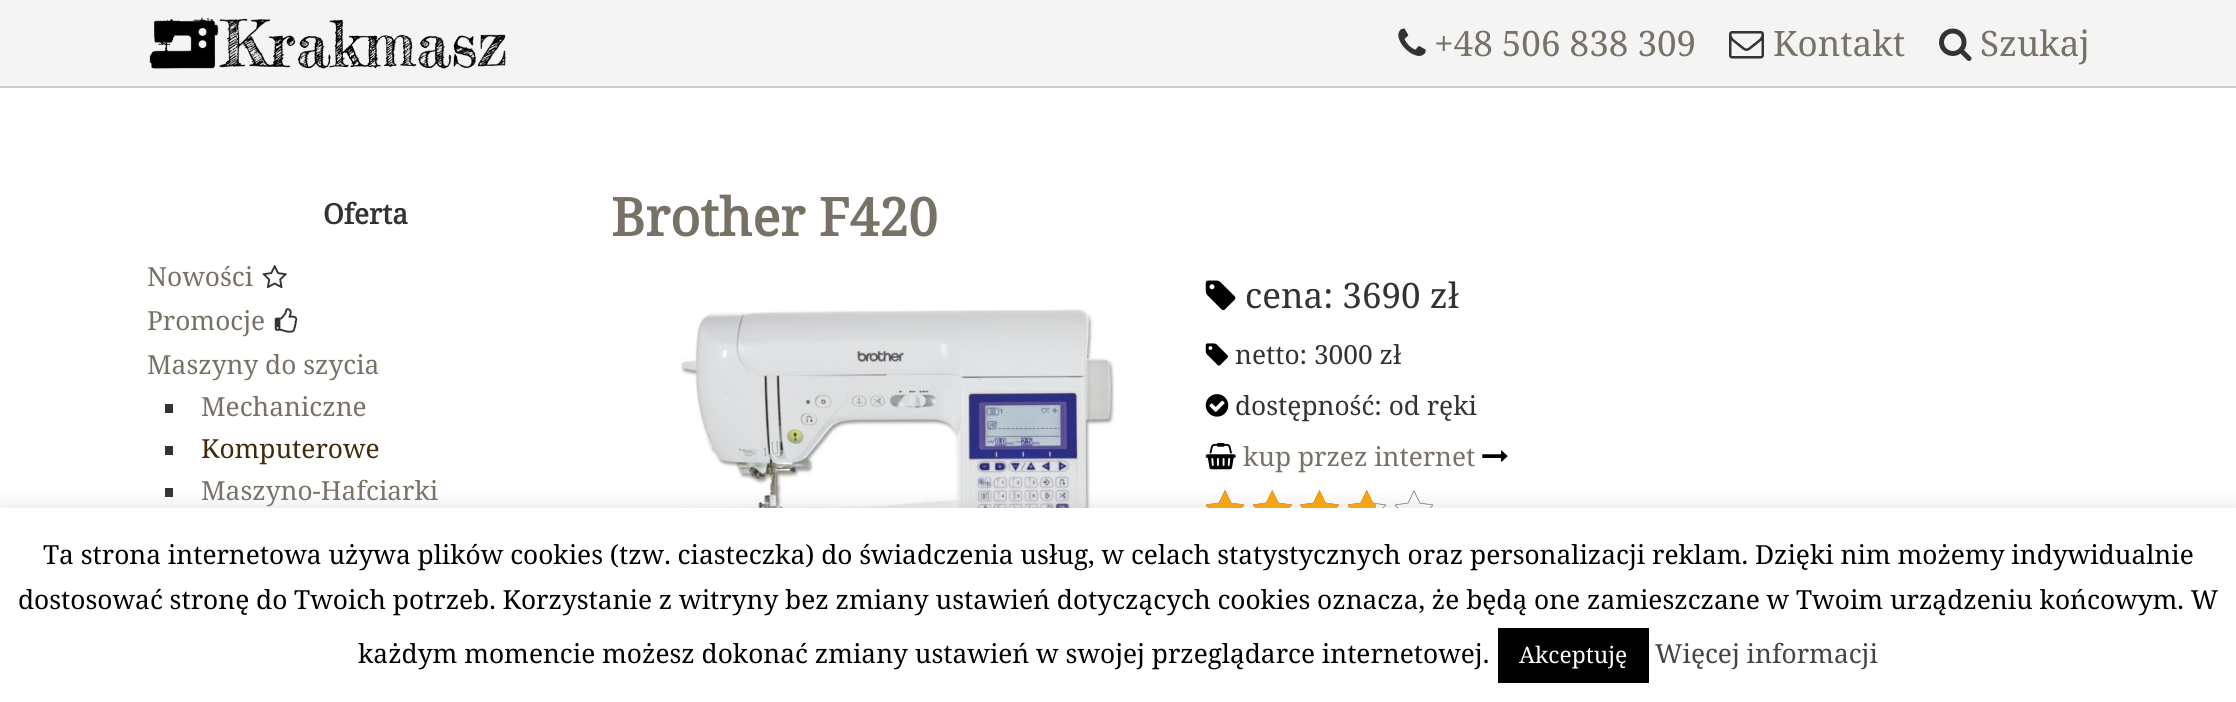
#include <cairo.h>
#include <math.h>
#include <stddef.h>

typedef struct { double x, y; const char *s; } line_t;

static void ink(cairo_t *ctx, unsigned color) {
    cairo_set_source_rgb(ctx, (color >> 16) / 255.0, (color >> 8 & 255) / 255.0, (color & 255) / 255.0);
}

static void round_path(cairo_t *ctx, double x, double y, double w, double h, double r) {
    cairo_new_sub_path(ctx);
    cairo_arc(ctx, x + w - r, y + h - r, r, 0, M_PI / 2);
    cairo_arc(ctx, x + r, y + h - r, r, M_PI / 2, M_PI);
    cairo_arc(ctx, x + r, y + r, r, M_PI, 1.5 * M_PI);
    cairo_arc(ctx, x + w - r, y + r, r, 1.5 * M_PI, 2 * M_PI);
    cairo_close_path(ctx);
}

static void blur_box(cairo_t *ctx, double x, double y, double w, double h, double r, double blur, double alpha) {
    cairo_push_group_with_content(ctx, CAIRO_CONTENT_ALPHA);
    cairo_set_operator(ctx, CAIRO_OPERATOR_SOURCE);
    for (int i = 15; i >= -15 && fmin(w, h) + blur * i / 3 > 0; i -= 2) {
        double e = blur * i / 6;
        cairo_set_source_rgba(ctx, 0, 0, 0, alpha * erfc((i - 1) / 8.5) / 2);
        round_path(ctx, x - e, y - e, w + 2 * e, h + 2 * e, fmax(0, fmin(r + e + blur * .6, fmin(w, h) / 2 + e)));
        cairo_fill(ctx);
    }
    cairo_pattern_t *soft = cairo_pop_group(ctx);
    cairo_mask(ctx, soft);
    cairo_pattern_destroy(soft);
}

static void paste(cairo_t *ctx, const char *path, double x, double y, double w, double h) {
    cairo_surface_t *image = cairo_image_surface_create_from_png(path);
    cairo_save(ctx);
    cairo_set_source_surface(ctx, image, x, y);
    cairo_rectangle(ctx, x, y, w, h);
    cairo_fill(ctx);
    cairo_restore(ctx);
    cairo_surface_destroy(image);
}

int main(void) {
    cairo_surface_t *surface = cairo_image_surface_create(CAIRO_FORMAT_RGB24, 2236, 702);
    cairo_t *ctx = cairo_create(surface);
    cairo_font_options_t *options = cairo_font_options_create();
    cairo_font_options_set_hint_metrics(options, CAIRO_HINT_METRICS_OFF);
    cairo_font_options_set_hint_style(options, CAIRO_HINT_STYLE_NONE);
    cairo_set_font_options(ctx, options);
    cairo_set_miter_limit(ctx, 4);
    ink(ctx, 0xFFFFFF);
    cairo_paint(ctx);
    ink(ctx, 0xF4F4F4);
    cairo_rectangle(ctx, 0, 0, 2236, 86);
    cairo_fill(ctx);
    ink(ctx, 0xCCCCCC);
    cairo_rectangle(ctx, 0, 86, 2236, 2);
    cairo_fill(ctx);
    paste(ctx, "media/1.png", 149, 17, 357, 52);
    paste(ctx, "media/2.png", 1398, 28, 28, 28);
    cairo_select_font_face(ctx, "Noto Serif", CAIRO_FONT_SLANT_NORMAL, CAIRO_FONT_WEIGHT_NORMAL);
    cairo_set_font_size(ctx, 35);
    ink(ctx, 0x787166);
    cairo_move_to(ctx, 1434, 56);
    cairo_show_text(ctx, "+48 506 838 309");
    paste(ctx, "media/3.png", 1729, 31, 35, 28);
    cairo_move_to(ctx, 1773, 56);
    cairo_show_text(ctx, "Kontakt");
    paste(ctx, "media/4.png", 1939, 28, 33, 33);
    cairo_move_to(ctx, 1980, 56);
    cairo_show_text(ctx, "Szukaj");
    cairo_select_font_face(ctx, "Noto Serif", CAIRO_FONT_SLANT_NORMAL, CAIRO_FONT_WEIGHT_BOLD);
    cairo_set_font_size(ctx, 28);
    ink(ctx, 0x333333);
    cairo_move_to(ctx, 323, 224);
    cairo_show_text(ctx, "Oferta");
    cairo_select_font_face(ctx, "Noto Serif", CAIRO_FONT_SLANT_NORMAL, CAIRO_FONT_WEIGHT_NORMAL);
    cairo_set_font_size(ctx, 26.25);
    ink(ctx, 0x787166);
    cairo_move_to(ctx, 147, 286);
    cairo_show_text(ctx, "Nowości");
    paste(ctx, "media/5.png", 262, 265, 25, 24);
    cairo_move_to(ctx, 147, 330);
    cairo_show_text(ctx, "Promocje");
    paste(ctx, "media/6.png", 274, 308, 24, 25);
    cairo_move_to(ctx, 147, 374);
    cairo_show_text(ctx, "Maszyny do szycia");
    ink(ctx, 0x333333);
    cairo_rectangle(ctx, 165, 404, 8, 9);
    cairo_fill(ctx);
    ink(ctx, 0x787166);
    cairo_move_to(ctx, 201, 416);
    cairo_show_text(ctx, "Mechaniczne");
    ink(ctx, 0x333333);
    cairo_rectangle(ctx, 165, 446, 8, 9);
    cairo_fill(ctx);
    ink(ctx, 0x3F2C0F);
    cairo_move_to(ctx, 201, 458);
    cairo_show_text(ctx, "Komputerowe");
    ink(ctx, 0x333333);
    cairo_rectangle(ctx, 165, 488, 8, 9);
    cairo_fill(ctx);
    ink(ctx, 0x787166);
    cairo_move_to(ctx, 201, 500);
    cairo_show_text(ctx, "Maszyno-Hafciarki");
    cairo_select_font_face(ctx, "Noto Serif", CAIRO_FONT_SLANT_NORMAL, CAIRO_FONT_WEIGHT_BOLD);
    cairo_set_font_size(ctx, 52.5);
    cairo_move_to(ctx, 611, 236);
    cairo_show_text(ctx, "Brother F420");
    paste(ctx, "media/7.png", 663, 309, 508, 199);
    paste(ctx, "media/8.png", 1205, 280, 31, 31);
    cairo_select_font_face(ctx, "Noto Serif", CAIRO_FONT_SLANT_NORMAL, CAIRO_FONT_WEIGHT_NORMAL);
    cairo_set_font_size(ctx, 35);
    ink(ctx, 0x333333);
    cairo_move_to(ctx, 1245, 308);
    cairo_show_text(ctx, "cena: 3690 zł");
    paste(ctx, "media/9.png", 1205, 343, 23, 23);
    cairo_set_font_size(ctx, 26.25);
    cairo_move_to(ctx, 1235, 364);
    cairo_show_text(ctx, "netto: 3000 zł");
    paste(ctx, "media/10.png", 1205, 394, 24, 23);
    cairo_move_to(ctx, 1235, 415);
    cairo_show_text(ctx, "dostępność: od ręki");
    paste(ctx, "media/11.png", 1205, 443, 31, 27);
    ink(ctx, 0x787166);
    cairo_move_to(ctx, 1243, 466);
    cairo_show_text(ctx, "kup przez internet");
    paste(ctx, "media/12.png", 1482, 450, 26, 12);
    paste(ctx, "media/13.png", 1206, 490, 38, 18);
    paste(ctx, "media/14.png", 1253, 490, 39, 18);
    paste(ctx, "media/15.png", 1300, 490, 39, 18);
    paste(ctx, "media/16.png", 1348, 490, 38, 18);
    paste(ctx, "media/13.png", 1395, 490, 38, 18);
    paste(ctx, "media/17.png", 1206, 490, 38, 18);
    paste(ctx, "media/18.png", 1253, 490, 39, 18);
    paste(ctx, "media/19.png", 1300, 490, 39, 18);
    paste(ctx, "media/20.png", 1348, 490, 28, 18);
    ink(ctx, 0xACABAB);
    blur_box(ctx, 0, 506, 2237, 196, 0, 9, 0.3);
    ink(ctx, 0xFFFFFF);
    cairo_rectangle(ctx, 0, 508, 2236, 194);
    cairo_fill(ctx);
    ink(ctx, 0x000000);
    {
        static const line_t items[] = {
            {43, 564, "Ta strona internetowa używa plików cookies (tzw. ciasteczka) do świadczenia usług, w celach statystycznych oraz personalizacji reklam. Dzięki nim możemy indywidualnie"},
            {18, 609, "dostosować stronę do Twoich potrzeb. Korzystanie z witryny bez zmiany ustawień dotyczących cookies oznacza, że będą one zamieszczane w Twoim urządzeniu końcowym. W"},
            {358, 663, "każdym momencie możesz dokonać zmiany ustawień w swojej przeglądarce internetowej."},
        };
        for (size_t i = 0; i < sizeof items / sizeof *items; i++) {
            cairo_move_to(ctx, items[i].x, items[i].y);
            cairo_show_text(ctx, items[i].s);
        }
    }
    cairo_rectangle(ctx, 1498, 628, 151, 55);
    cairo_fill(ctx);
    cairo_set_font_size(ctx, 22.75);
    ink(ctx, 0xFFFFFF);
    cairo_move_to(ctx, 1519, 663);
    cairo_show_text(ctx, "Akceptuję");
    cairo_set_font_size(ctx, 26.25);
    ink(ctx, 0x444444);
    cairo_move_to(ctx, 1655, 663);
    cairo_show_text(ctx, "Więcej informacji");
    cairo_surface_write_to_png(surface, "image.png");
    cairo_font_options_destroy(options);
    cairo_destroy(ctx);
    cairo_surface_destroy(surface);
    return 0;
}
